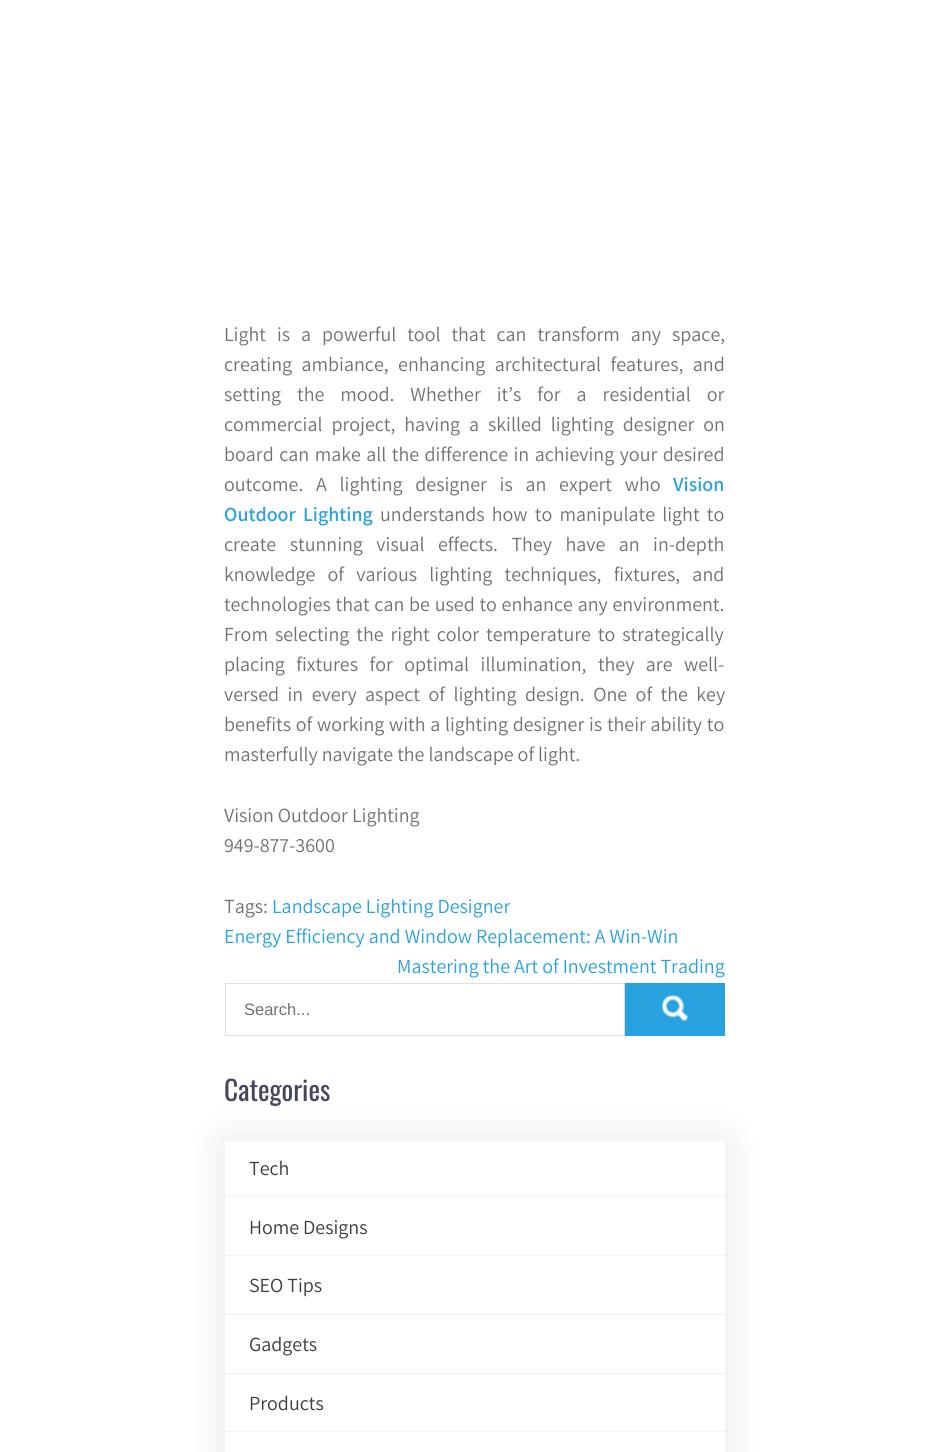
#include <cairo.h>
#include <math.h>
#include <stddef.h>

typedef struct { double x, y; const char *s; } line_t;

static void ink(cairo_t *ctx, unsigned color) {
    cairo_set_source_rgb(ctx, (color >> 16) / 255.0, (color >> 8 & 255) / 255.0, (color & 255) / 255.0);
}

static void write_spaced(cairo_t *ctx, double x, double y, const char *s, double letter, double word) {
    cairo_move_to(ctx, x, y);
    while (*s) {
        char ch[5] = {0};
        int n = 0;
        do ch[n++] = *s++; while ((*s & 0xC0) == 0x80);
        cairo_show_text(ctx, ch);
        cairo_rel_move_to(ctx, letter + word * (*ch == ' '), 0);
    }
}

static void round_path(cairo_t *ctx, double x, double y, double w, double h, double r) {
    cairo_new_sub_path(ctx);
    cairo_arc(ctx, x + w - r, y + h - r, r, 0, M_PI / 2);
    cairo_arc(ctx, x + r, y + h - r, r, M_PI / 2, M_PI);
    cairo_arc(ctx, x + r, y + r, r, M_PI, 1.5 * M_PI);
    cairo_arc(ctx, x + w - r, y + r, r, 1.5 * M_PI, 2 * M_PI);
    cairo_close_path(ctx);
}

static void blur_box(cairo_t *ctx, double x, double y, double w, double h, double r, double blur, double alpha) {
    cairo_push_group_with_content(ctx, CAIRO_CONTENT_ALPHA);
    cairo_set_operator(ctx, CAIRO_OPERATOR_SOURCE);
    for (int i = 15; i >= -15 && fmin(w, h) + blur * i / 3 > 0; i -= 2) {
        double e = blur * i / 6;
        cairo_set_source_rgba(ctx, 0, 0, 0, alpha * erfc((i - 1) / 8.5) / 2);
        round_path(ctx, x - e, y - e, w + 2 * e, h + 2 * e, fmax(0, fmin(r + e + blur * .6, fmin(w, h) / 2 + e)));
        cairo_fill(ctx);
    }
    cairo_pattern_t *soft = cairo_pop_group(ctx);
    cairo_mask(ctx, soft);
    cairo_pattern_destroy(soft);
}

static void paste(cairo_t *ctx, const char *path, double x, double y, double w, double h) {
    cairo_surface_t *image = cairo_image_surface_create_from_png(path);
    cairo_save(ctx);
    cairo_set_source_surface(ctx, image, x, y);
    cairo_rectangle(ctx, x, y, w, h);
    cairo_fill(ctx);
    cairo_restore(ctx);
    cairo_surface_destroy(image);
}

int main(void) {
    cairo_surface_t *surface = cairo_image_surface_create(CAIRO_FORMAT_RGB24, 948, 1452);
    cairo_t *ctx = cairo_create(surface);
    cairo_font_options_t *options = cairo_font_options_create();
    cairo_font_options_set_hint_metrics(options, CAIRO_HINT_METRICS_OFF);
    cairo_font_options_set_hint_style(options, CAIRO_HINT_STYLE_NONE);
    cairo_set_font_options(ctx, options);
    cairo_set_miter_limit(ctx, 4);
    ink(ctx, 0xFFFFFF);
    cairo_paint(ctx);
    cairo_select_font_face(ctx, "Assistant", CAIRO_FONT_SLANT_NORMAL, CAIRO_FONT_WEIGHT_NORMAL);
    cairo_set_font_size(ctx, 20);
    ink(ctx, 0x717171);
    write_spaced(ctx, 224, 341, "Light is a powerful tool that can transform any space,", 0, 7);
    write_spaced(ctx, 224, 371, "creating ambiance, enhancing architectural features, and", 0, 5.5);
    write_spaced(ctx, 224, 401, "setting the mood. Whether it’s for a residential or", 0, 12);
    write_spaced(ctx, 224, 431, "commercial project, having a skilled lighting designer on", 0, 5);
    write_spaced(ctx, 224, 461, "board can make all the difference in achieving your desired", 0, 1.5);
    write_spaced(ctx, 224, 491, "outcome. A lighting designer is an expert who", 0, 8.75);
    cairo_select_font_face(ctx, "Assistant SemiBold", CAIRO_FONT_SLANT_NORMAL, CAIRO_FONT_WEIGHT_NORMAL);
    ink(ctx, 0x28A1DF);
    cairo_move_to(ctx, 673, 491);
    cairo_show_text(ctx, "Vision");
    write_spaced(ctx, 224, 521, "Outdoor Lighting", 0, 3.25);
    cairo_select_font_face(ctx, "Assistant", CAIRO_FONT_SLANT_NORMAL, CAIRO_FONT_WEIGHT_NORMAL);
    ink(ctx, 0x717171);
    write_spaced(ctx, 380, 521, "understands how to manipulate light to", 0, 3.25);
    write_spaced(ctx, 224, 551, "create stunning visual effects. They have an in-depth", 0, 9.5);
    write_spaced(ctx, 224, 581, "knowledge of various lighting techniques, fixtures, and", 0, 8.25);
    write_spaced(ctx, 224, 611, "technologies that can be used to enhance any environment.", 0, 0.75);
    write_spaced(ctx, 224, 641, "From selecting the right color temperature to strategically", 0, 3);
    write_spaced(ctx, 224, 671, "placing fixtures for optimal illumination, they are well-", 0, 7.5);
    write_spaced(ctx, 224, 701, "versed in every aspect of lighting design. One of the key", 0, 4.5);
    write_spaced(ctx, 224, 731, "benefits of working with a lighting designer is their ability to", 0, 0.75);
    {
        static const line_t items[] = {
            {224, 761, "masterfully navigate the landscape of light."},
            {224, 822, "Vision Outdoor Lighting"},
            {224, 852, "949-877-3600"},
            {224, 913, "Tags:"},
        };
        for (size_t i = 0; i < sizeof items / sizeof *items; i++) {
            cairo_move_to(ctx, items[i].x, items[i].y);
            cairo_show_text(ctx, items[i].s);
        }
    }
    ink(ctx, 0x28A1DF);
    {
        static const line_t items[] = {
            {272, 913, "Landscape Lighting Designer"},
            {224, 943, "Energy Efficiency and Window Replacement: A Win-Win"},
            {397, 973, "Mastering the Art of Investment Trading"},
        };
        for (size_t i = 0; i < sizeof items / sizeof *items; i++) {
            cairo_move_to(ctx, items[i].x, items[i].y);
            cairo_show_text(ctx, items[i].s);
        }
    }
    cairo_rectangle(ctx, 225.5, 983.5, 399, 52);
    ink(ctx, 0xDDDDDD);
    cairo_set_line_width(ctx, 1);
    cairo_stroke(ctx);
    cairo_select_font_face(ctx, "Liberation Sans", CAIRO_FONT_SLANT_NORMAL, CAIRO_FONT_WEIGHT_NORMAL);
    cairo_set_font_size(ctx, 16.5);
    ink(ctx, 0x717171);
    cairo_move_to(ctx, 244, 1015);
    cairo_show_text(ctx, "Search...");
    ink(ctx, 0x28A1DF);
    cairo_rectangle(ctx, 625, 983, 100, 53);
    cairo_fill(ctx);
    paste(ctx, "media/1.png", 662, 995, 26, 26);
    ink(ctx, 0x000000);
    blur_box(ctx, 225, 1141, 500, 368, 0, 19, 0.1);
    cairo_select_font_face(ctx, "Oswald", CAIRO_FONT_SLANT_NORMAL, CAIRO_FONT_WEIGHT_NORMAL);
    cairo_set_font_size(ctx, 27.5);
    ink(ctx, 0x46485F);
    cairo_move_to(ctx, 224, 1101);
    cairo_show_text(ctx, "Categories");
    ink(ctx, 0xFFFFFF);
    cairo_rectangle(ctx, 225, 1141, 500, 311);
    cairo_fill(ctx);
    ink(ctx, 0xF2F2F2);
    cairo_rectangle(ctx, 225, 1196, 500, 1);
    cairo_fill(ctx);
    cairo_select_font_face(ctx, "Assistant", CAIRO_FONT_SLANT_NORMAL, CAIRO_FONT_WEIGHT_NORMAL);
    cairo_set_font_size(ctx, 20);
    ink(ctx, 0x3B3B3B);
    cairo_move_to(ctx, 249, 1175);
    cairo_show_text(ctx, "Tech");
    ink(ctx, 0xF2F2F2);
    cairo_rectangle(ctx, 225, 1255, 500, 1);
    cairo_fill(ctx);
    ink(ctx, 0x3B3B3B);
    cairo_move_to(ctx, 249, 1234);
    cairo_show_text(ctx, "Home Designs");
    ink(ctx, 0xF2F2F2);
    cairo_rectangle(ctx, 225, 1314, 500, 1);
    cairo_fill(ctx);
    ink(ctx, 0x3B3B3B);
    cairo_move_to(ctx, 249, 1292);
    cairo_show_text(ctx, "SEO Tips");
    ink(ctx, 0xF2F2F2);
    cairo_rectangle(ctx, 225, 1373, 500, 1);
    cairo_fill(ctx);
    ink(ctx, 0x3B3B3B);
    cairo_move_to(ctx, 249, 1351);
    cairo_show_text(ctx, "Gadgets");
    ink(ctx, 0xF2F2F2);
    cairo_rectangle(ctx, 225, 1431, 500, 1);
    cairo_fill(ctx);
    ink(ctx, 0x3B3B3B);
    cairo_move_to(ctx, 249, 1410);
    cairo_show_text(ctx, "Products");
    cairo_surface_write_to_png(surface, "image.png");
    cairo_font_options_destroy(options);
    cairo_destroy(ctx);
    cairo_surface_destroy(surface);
    return 0;
}
